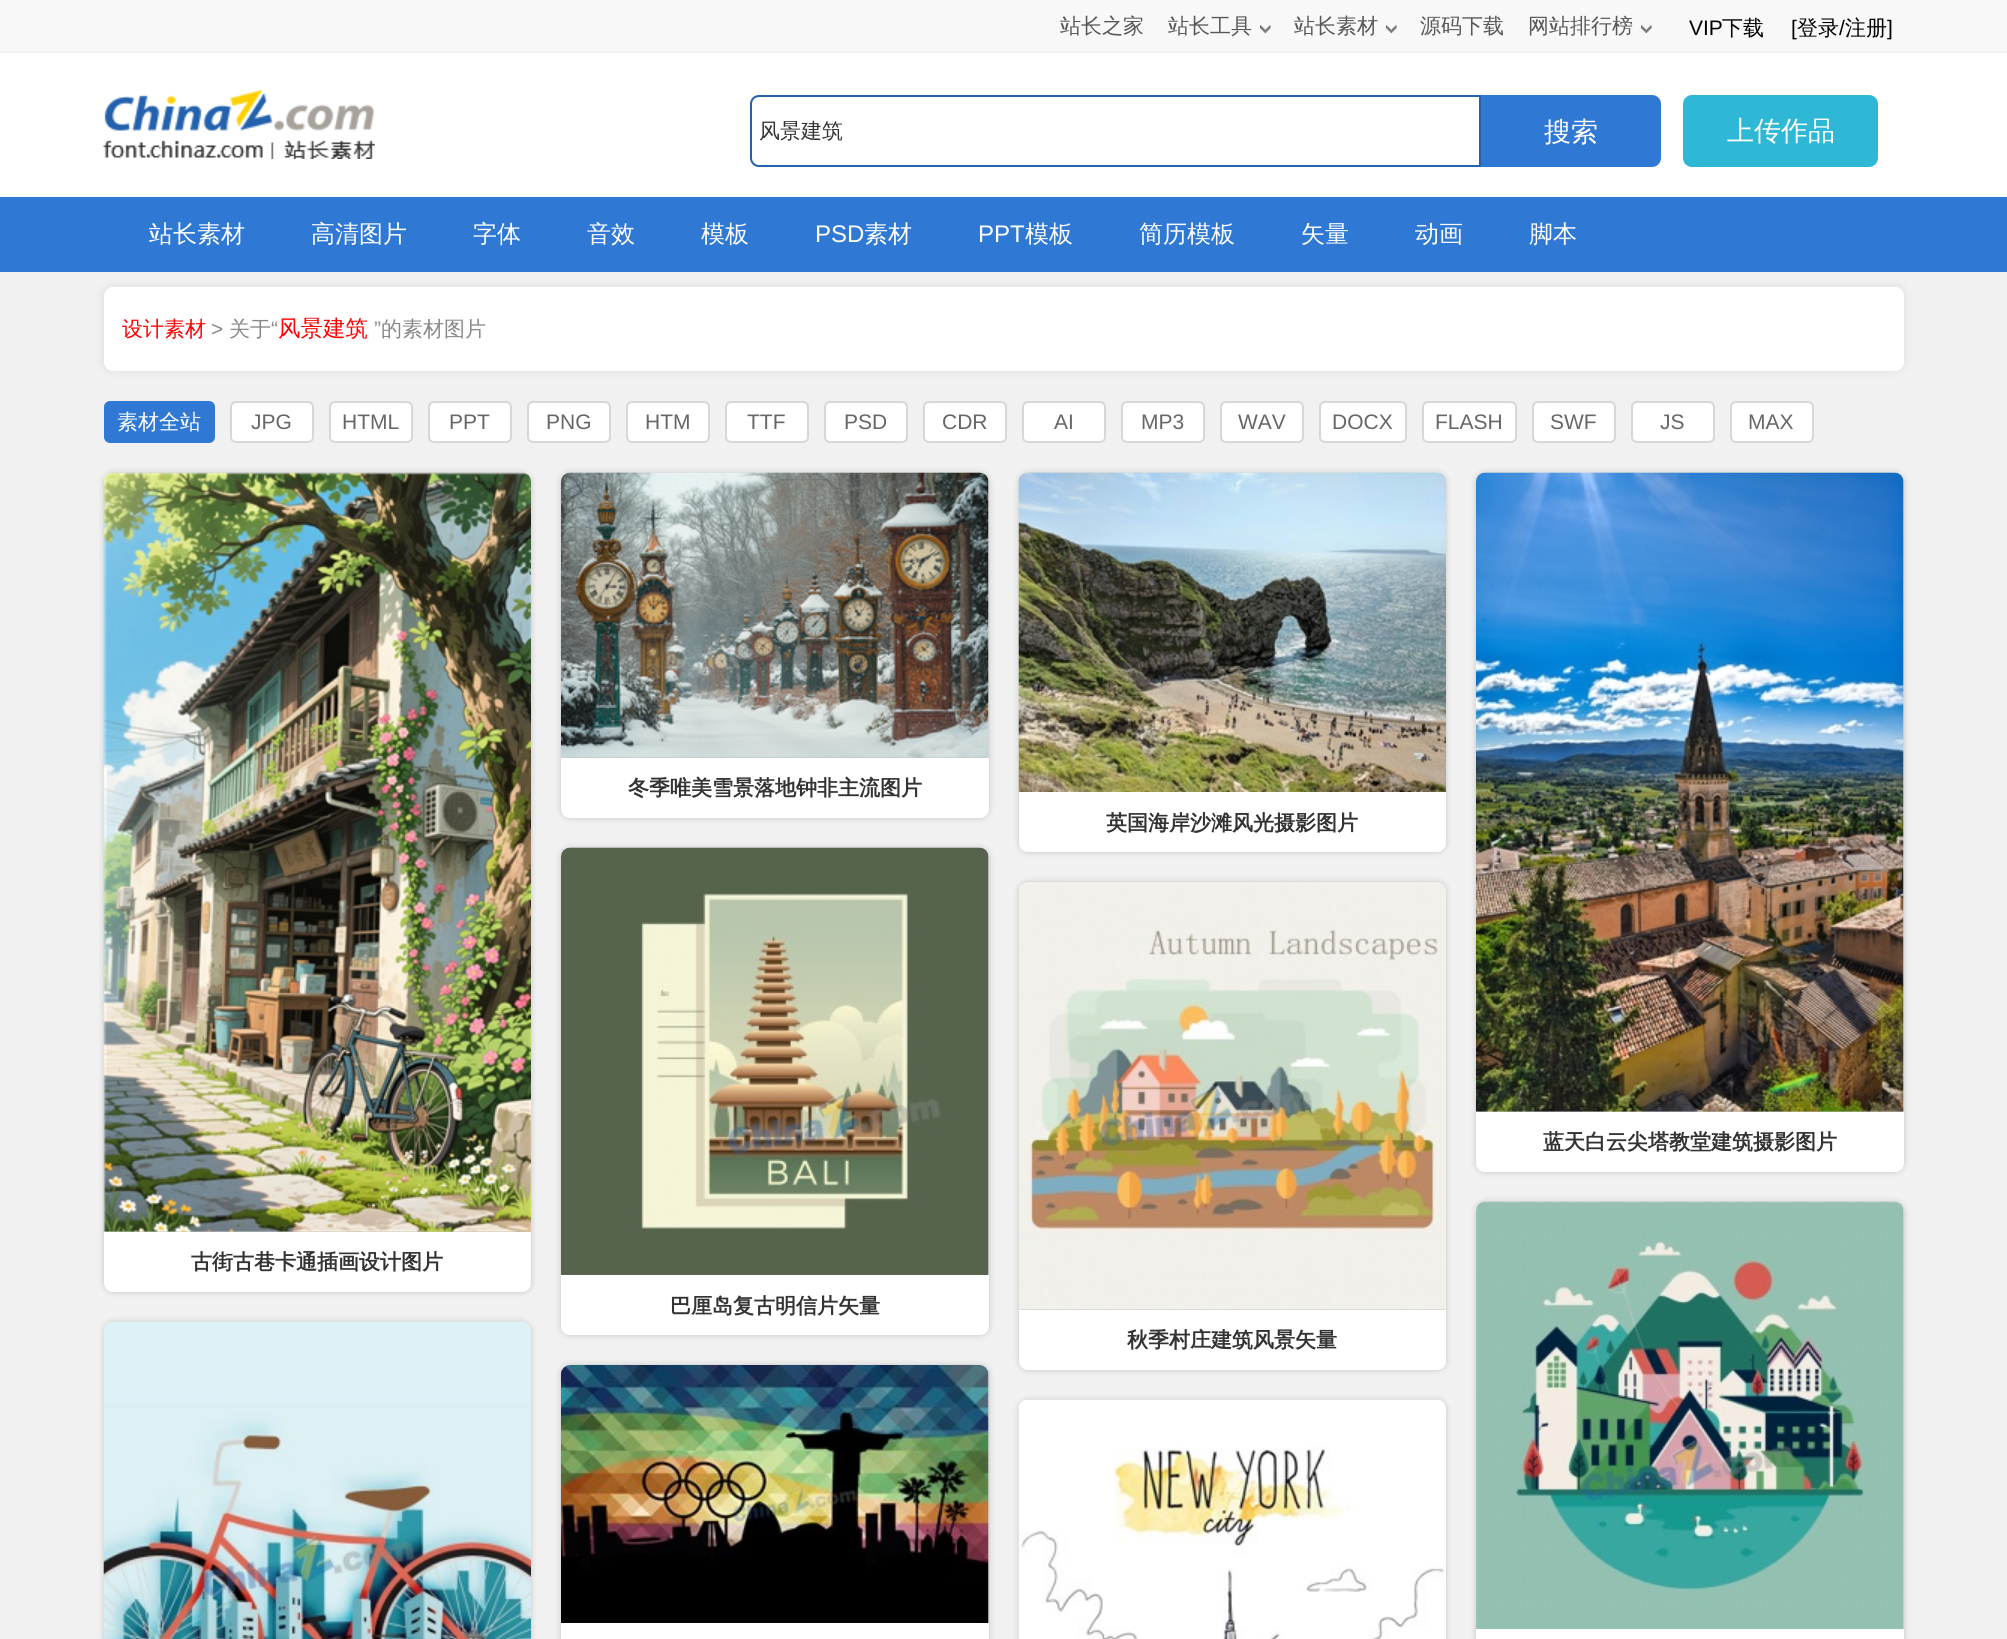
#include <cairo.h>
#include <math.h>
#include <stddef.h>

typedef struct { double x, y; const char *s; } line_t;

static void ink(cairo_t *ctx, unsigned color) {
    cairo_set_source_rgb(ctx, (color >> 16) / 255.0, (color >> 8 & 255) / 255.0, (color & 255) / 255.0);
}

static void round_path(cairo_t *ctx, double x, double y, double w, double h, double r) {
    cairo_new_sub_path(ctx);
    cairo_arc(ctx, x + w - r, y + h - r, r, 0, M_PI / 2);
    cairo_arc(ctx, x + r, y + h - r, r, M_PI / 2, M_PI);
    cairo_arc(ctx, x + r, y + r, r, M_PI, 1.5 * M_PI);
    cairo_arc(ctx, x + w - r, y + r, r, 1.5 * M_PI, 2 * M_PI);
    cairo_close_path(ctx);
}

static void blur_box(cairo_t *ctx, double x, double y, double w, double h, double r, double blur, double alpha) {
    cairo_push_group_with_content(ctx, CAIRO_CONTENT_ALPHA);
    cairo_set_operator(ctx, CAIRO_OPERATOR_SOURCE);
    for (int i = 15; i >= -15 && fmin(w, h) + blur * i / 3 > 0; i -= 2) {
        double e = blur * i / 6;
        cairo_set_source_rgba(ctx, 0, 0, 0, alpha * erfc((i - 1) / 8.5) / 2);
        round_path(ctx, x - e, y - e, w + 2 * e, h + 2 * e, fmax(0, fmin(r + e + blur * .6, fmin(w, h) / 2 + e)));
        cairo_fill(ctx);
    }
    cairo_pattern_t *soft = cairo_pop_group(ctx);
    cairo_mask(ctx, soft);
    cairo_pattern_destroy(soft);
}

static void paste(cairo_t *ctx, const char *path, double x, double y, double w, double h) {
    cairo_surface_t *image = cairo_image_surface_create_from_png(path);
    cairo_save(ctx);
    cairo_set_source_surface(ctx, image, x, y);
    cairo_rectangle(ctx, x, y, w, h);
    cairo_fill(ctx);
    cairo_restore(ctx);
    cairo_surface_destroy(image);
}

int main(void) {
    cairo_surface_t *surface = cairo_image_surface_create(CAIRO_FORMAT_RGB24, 2007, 1639);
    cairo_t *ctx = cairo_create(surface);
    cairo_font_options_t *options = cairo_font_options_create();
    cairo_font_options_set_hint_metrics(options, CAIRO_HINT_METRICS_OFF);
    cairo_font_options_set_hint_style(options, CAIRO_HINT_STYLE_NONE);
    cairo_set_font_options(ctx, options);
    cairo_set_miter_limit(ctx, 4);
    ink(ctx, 0xFFFFFF);
    cairo_paint(ctx);
    ink(ctx, 0xF8F8F8);
    cairo_rectangle(ctx, 0, 0, 2007, 51);
    cairo_fill(ctx);
    ink(ctx, 0xF2F2F2);
    cairo_rectangle(ctx, 0, 51, 2007, 2);
    cairo_fill(ctx);
    cairo_select_font_face(ctx, "WenQuanYi Zen Hei Medium", CAIRO_FONT_SLANT_NORMAL, CAIRO_FONT_WEIGHT_NORMAL);
    cairo_set_font_size(ctx, 21);
    ink(ctx, 0x575757);
    cairo_move_to(ctx, 1060, 33);
    cairo_show_text(ctx, "站长之家");
    cairo_move_to(ctx, 1168, 33);
    cairo_show_text(ctx, "站长工具");
    paste(ctx, "media/1.png", 1260, 25, 11, 8);
    cairo_move_to(ctx, 1294, 33);
    cairo_show_text(ctx, "站长素材");
    paste(ctx, "media/2.png", 1386, 25, 11, 8);
    cairo_move_to(ctx, 1420, 33);
    cairo_show_text(ctx, "源码下载");
    cairo_move_to(ctx, 1528, 33);
    cairo_show_text(ctx, "网站排行榜");
    paste(ctx, "media/2.png", 1641, 25, 11, 8);
    cairo_select_font_face(ctx, "Liberation Sans", CAIRO_FONT_SLANT_NORMAL, CAIRO_FONT_WEIGHT_NORMAL);
    ink(ctx, 0x000000);
    cairo_move_to(ctx, 1689, 35);
    cairo_show_text(ctx, "VIP");
    cairo_select_font_face(ctx, "WenQuanYi Zen Hei Medium", CAIRO_FONT_SLANT_NORMAL, CAIRO_FONT_WEIGHT_NORMAL);
    cairo_move_to(ctx, 1722, 35);
    cairo_show_text(ctx, "下载");
    cairo_select_font_face(ctx, "Liberation Sans", CAIRO_FONT_SLANT_NORMAL, CAIRO_FONT_WEIGHT_NORMAL);
    cairo_move_to(ctx, 1791, 35);
    cairo_show_text(ctx, "[");
    cairo_select_font_face(ctx, "WenQuanYi Zen Hei Medium", CAIRO_FONT_SLANT_NORMAL, CAIRO_FONT_WEIGHT_NORMAL);
    cairo_move_to(ctx, 1797, 35);
    cairo_show_text(ctx, "登录");
    cairo_select_font_face(ctx, "Liberation Sans", CAIRO_FONT_SLANT_NORMAL, CAIRO_FONT_WEIGHT_NORMAL);
    cairo_move_to(ctx, 1839, 35);
    cairo_show_text(ctx, "/");
    cairo_select_font_face(ctx, "WenQuanYi Zen Hei Medium", CAIRO_FONT_SLANT_NORMAL, CAIRO_FONT_WEIGHT_NORMAL);
    cairo_move_to(ctx, 1845, 35);
    cairo_show_text(ctx, "注册");
    cairo_select_font_face(ctx, "Liberation Sans", CAIRO_FONT_SLANT_NORMAL, CAIRO_FONT_WEIGHT_NORMAL);
    cairo_move_to(ctx, 1887, 35);
    cairo_show_text(ctx, "]");
    paste(ctx, "media/3.png", 103, 90, 272, 69);
    cairo_new_path(ctx);
    cairo_move_to(ctx, 759, 96);
    cairo_line_to(ctx, 1480, 96);
    cairo_line_to(ctx, 1480, 166);
    cairo_line_to(ctx, 759, 166);
    cairo_curve_to(ctx, 754.5, 166, 751, 162.5, 751, 158);
    cairo_line_to(ctx, 751, 104);
    cairo_curve_to(ctx, 751, 99.5, 754.5, 96, 759, 96);
    cairo_close_path(ctx);
    ink(ctx, 0x2361AD);
    cairo_stroke(ctx);
    cairo_select_font_face(ctx, "WenQuanYi Zen Hei Medium", CAIRO_FONT_SLANT_NORMAL, CAIRO_FONT_WEIGHT_NORMAL);
    ink(ctx, 0x333333);
    cairo_move_to(ctx, 759, 138);
    cairo_show_text(ctx, "风景建筑");
    ink(ctx, 0x2F79D5);
    cairo_new_path(ctx);
    cairo_move_to(ctx, 1481, 95);
    cairo_line_to(ctx, 1652, 95);
    cairo_curve_to(ctx, 1657, 95, 1661, 99, 1661, 104);
    cairo_line_to(ctx, 1661, 158);
    cairo_curve_to(ctx, 1661, 163, 1657, 167, 1652, 167);
    cairo_line_to(ctx, 1481, 167);
    cairo_close_path(ctx);
    cairo_fill(ctx);
    cairo_set_font_size(ctx, 27);
    ink(ctx, 0xFFFFFF);
    cairo_move_to(ctx, 1544, 141);
    cairo_show_text(ctx, "搜索");
    ink(ctx, 0x2FB8D5);
    round_path(ctx, 1683, 95, 195, 72, 9);
    cairo_fill(ctx);
    ink(ctx, 0xFFFFFF);
    cairo_move_to(ctx, 1727, 140);
    cairo_show_text(ctx, "上传作品");
    ink(ctx, 0x2F79D5);
    cairo_rectangle(ctx, 0, 197, 2007, 75);
    cairo_fill(ctx);
    cairo_set_font_size(ctx, 24);
    ink(ctx, 0xFFFFFF);
    {
        static const line_t items[] = {
            {149, 242, "站长素材"},
            {311, 242, "高清图片"},
            {473, 242, "字体"},
            {587, 242, "音效"},
            {701, 242, "模板"},
        };
        for (size_t i = 0; i < sizeof items / sizeof *items; i++) {
            cairo_move_to(ctx, items[i].x, items[i].y);
            cairo_show_text(ctx, items[i].s);
        }
    }
    cairo_select_font_face(ctx, "Liberation Sans", CAIRO_FONT_SLANT_NORMAL, CAIRO_FONT_WEIGHT_NORMAL);
    cairo_move_to(ctx, 815, 242);
    cairo_show_text(ctx, "PSD");
    cairo_select_font_face(ctx, "WenQuanYi Zen Hei Medium", CAIRO_FONT_SLANT_NORMAL, CAIRO_FONT_WEIGHT_NORMAL);
    cairo_move_to(ctx, 864, 242);
    cairo_show_text(ctx, "素材");
    cairo_select_font_face(ctx, "Liberation Sans", CAIRO_FONT_SLANT_NORMAL, CAIRO_FONT_WEIGHT_NORMAL);
    cairo_move_to(ctx, 978, 242);
    cairo_show_text(ctx, "PPT");
    cairo_select_font_face(ctx, "WenQuanYi Zen Hei Medium", CAIRO_FONT_SLANT_NORMAL, CAIRO_FONT_WEIGHT_NORMAL);
    {
        static const line_t items[] = {
            {1025, 242, "模板"},
            {1139, 242, "简历模板"},
            {1301, 242, "矢量"},
            {1415, 242, "动画"},
            {1529, 242, "脚本"},
        };
        for (size_t i = 0; i < sizeof items / sizeof *items; i++) {
            cairo_move_to(ctx, items[i].x, items[i].y);
            cairo_show_text(ctx, items[i].s);
        }
    }
    ink(ctx, 0xF1F1F1);
    cairo_rectangle(ctx, 0, 272, 2007, 1367);
    cairo_fill(ctx);
    ink(ctx, 0xDFE0E1);
    blur_box(ctx, 102, 285, 1803, 87, 11, 4, 1);
    ink(ctx, 0xFFFFFF);
    round_path(ctx, 104, 287, 1800, 84, 9);
    cairo_fill(ctx);
    cairo_set_font_size(ctx, 21);
    ink(ctx, 0xFF0000);
    cairo_move_to(ctx, 122, 336);
    cairo_show_text(ctx, "设计素材");
    cairo_select_font_face(ctx, "Liberation Sans", CAIRO_FONT_SLANT_NORMAL, CAIRO_FONT_WEIGHT_NORMAL);
    ink(ctx, 0x888888);
    cairo_move_to(ctx, 211, 336);
    cairo_show_text(ctx, ">");
    cairo_select_font_face(ctx, "WenQuanYi Zen Hei Medium", CAIRO_FONT_SLANT_NORMAL, CAIRO_FONT_WEIGHT_NORMAL);
    cairo_move_to(ctx, 229, 336);
    cairo_show_text(ctx, "关于");
    cairo_select_font_face(ctx, "Liberation Sans", CAIRO_FONT_SLANT_NORMAL, CAIRO_FONT_WEIGHT_NORMAL);
    cairo_move_to(ctx, 271, 336);
    cairo_show_text(ctx, "“");
    cairo_select_font_face(ctx, "WenQuanYi Zen Hei Medium", CAIRO_FONT_SLANT_NORMAL, CAIRO_FONT_WEIGHT_NORMAL);
    cairo_set_font_size(ctx, 22.5);
    ink(ctx, 0xFF0000);
    cairo_move_to(ctx, 278, 336);
    cairo_show_text(ctx, "风景建筑");
    cairo_select_font_face(ctx, "Liberation Sans", CAIRO_FONT_SLANT_NORMAL, CAIRO_FONT_WEIGHT_NORMAL);
    cairo_set_font_size(ctx, 21);
    ink(ctx, 0x888888);
    cairo_move_to(ctx, 374, 336);
    cairo_show_text(ctx, "”");
    cairo_select_font_face(ctx, "WenQuanYi Zen Hei Medium", CAIRO_FONT_SLANT_NORMAL, CAIRO_FONT_WEIGHT_NORMAL);
    cairo_move_to(ctx, 381, 336);
    cairo_show_text(ctx, "的素材图片");
    ink(ctx, 0x2F79D5);
    round_path(ctx, 105, 402, 109, 40, 5);
    cairo_fill_preserve(ctx);
    cairo_stroke(ctx);
    ink(ctx, 0xFFFFFF);
    cairo_move_to(ctx, 117, 429);
    cairo_show_text(ctx, "素材全站");
    round_path(ctx, 231, 402, 82, 40, 5);
    cairo_fill_preserve(ctx);
    ink(ctx, 0xD7D7D7);
    cairo_stroke(ctx);
    cairo_select_font_face(ctx, "Liberation Sans", CAIRO_FONT_SLANT_NORMAL, CAIRO_FONT_WEIGHT_NORMAL);
    ink(ctx, 0x666666);
    cairo_move_to(ctx, 251, 429);
    cairo_show_text(ctx, "JPG");
    ink(ctx, 0xFFFFFF);
    round_path(ctx, 330, 402, 82, 40, 5);
    cairo_fill_preserve(ctx);
    ink(ctx, 0xD7D7D7);
    cairo_stroke(ctx);
    ink(ctx, 0x666666);
    cairo_move_to(ctx, 342, 429);
    cairo_show_text(ctx, "HTML");
    ink(ctx, 0xFFFFFF);
    round_path(ctx, 429, 402, 82, 40, 5);
    cairo_fill_preserve(ctx);
    ink(ctx, 0xD7D7D7);
    cairo_stroke(ctx);
    ink(ctx, 0x666666);
    cairo_move_to(ctx, 449, 429);
    cairo_show_text(ctx, "PPT");
    ink(ctx, 0xFFFFFF);
    round_path(ctx, 528, 402, 82, 40, 5);
    cairo_fill_preserve(ctx);
    ink(ctx, 0xD7D7D7);
    cairo_stroke(ctx);
    ink(ctx, 0x666666);
    cairo_move_to(ctx, 546, 429);
    cairo_show_text(ctx, "PNG");
    ink(ctx, 0xFFFFFF);
    round_path(ctx, 627, 402, 82, 40, 5);
    cairo_fill_preserve(ctx);
    ink(ctx, 0xD7D7D7);
    cairo_stroke(ctx);
    ink(ctx, 0x666666);
    cairo_move_to(ctx, 645, 429);
    cairo_show_text(ctx, "HTM");
    ink(ctx, 0xFFFFFF);
    round_path(ctx, 726, 402, 82, 40, 5);
    cairo_fill_preserve(ctx);
    ink(ctx, 0xD7D7D7);
    cairo_stroke(ctx);
    ink(ctx, 0x666666);
    cairo_move_to(ctx, 747, 429);
    cairo_show_text(ctx, "TTF");
    ink(ctx, 0xFFFFFF);
    round_path(ctx, 825, 402, 82, 40, 5);
    cairo_fill_preserve(ctx);
    ink(ctx, 0xD7D7D7);
    cairo_stroke(ctx);
    ink(ctx, 0x666666);
    cairo_move_to(ctx, 844, 429);
    cairo_show_text(ctx, "PSD");
    ink(ctx, 0xFFFFFF);
    round_path(ctx, 924, 402, 82, 40, 5);
    cairo_fill_preserve(ctx);
    ink(ctx, 0xD7D7D7);
    cairo_stroke(ctx);
    ink(ctx, 0x666666);
    cairo_move_to(ctx, 942, 429);
    cairo_show_text(ctx, "CDR");
    ink(ctx, 0xFFFFFF);
    round_path(ctx, 1023, 402, 82, 40, 5);
    cairo_fill_preserve(ctx);
    ink(ctx, 0xD7D7D7);
    cairo_stroke(ctx);
    ink(ctx, 0x666666);
    cairo_move_to(ctx, 1054, 429);
    cairo_show_text(ctx, "AI");
    ink(ctx, 0xFFFFFF);
    round_path(ctx, 1122, 402, 82, 40, 5);
    cairo_fill_preserve(ctx);
    ink(ctx, 0xD7D7D7);
    cairo_stroke(ctx);
    ink(ctx, 0x666666);
    cairo_move_to(ctx, 1141, 429);
    cairo_show_text(ctx, "MP3");
    ink(ctx, 0xFFFFFF);
    round_path(ctx, 1221, 402, 82, 40, 5);
    cairo_fill_preserve(ctx);
    ink(ctx, 0xD7D7D7);
    cairo_stroke(ctx);
    ink(ctx, 0x666666);
    cairo_move_to(ctx, 1238, 429);
    cairo_show_text(ctx, "WAV");
    ink(ctx, 0xFFFFFF);
    round_path(ctx, 1320, 402, 86, 40, 5);
    cairo_fill_preserve(ctx);
    ink(ctx, 0xD7D7D7);
    cairo_stroke(ctx);
    ink(ctx, 0x666666);
    cairo_move_to(ctx, 1332, 429);
    cairo_show_text(ctx, "DOCX");
    ink(ctx, 0xFFFFFF);
    round_path(ctx, 1423, 402, 93, 40, 5);
    cairo_fill_preserve(ctx);
    ink(ctx, 0xD7D7D7);
    cairo_stroke(ctx);
    ink(ctx, 0x666666);
    cairo_move_to(ctx, 1435, 429);
    cairo_show_text(ctx, "FLASH");
    ink(ctx, 0xFFFFFF);
    round_path(ctx, 1533, 402, 82, 40, 5);
    cairo_fill_preserve(ctx);
    ink(ctx, 0xD7D7D7);
    cairo_stroke(ctx);
    ink(ctx, 0x666666);
    cairo_move_to(ctx, 1550, 429);
    cairo_show_text(ctx, "SWF");
    ink(ctx, 0xFFFFFF);
    round_path(ctx, 1632, 402, 82, 40, 5);
    cairo_fill_preserve(ctx);
    ink(ctx, 0xD7D7D7);
    cairo_stroke(ctx);
    ink(ctx, 0x666666);
    cairo_move_to(ctx, 1660, 429);
    cairo_show_text(ctx, "JS");
    ink(ctx, 0xFFFFFF);
    round_path(ctx, 1731, 402, 82, 40, 5);
    cairo_fill_preserve(ctx);
    ink(ctx, 0xD7D7D7);
    cairo_stroke(ctx);
    ink(ctx, 0x666666);
    cairo_move_to(ctx, 1748, 429);
    cairo_show_text(ctx, "MAX");
    ink(ctx, 0x000000);
    blur_box(ctx, 561, 473, 428, 345, 9, 3, 0.2);
    paste(ctx, "media/4.png", 561, 472, 428, 286);
    ink(ctx, 0xFFFFFF);
    cairo_new_path(ctx);
    cairo_move_to(ctx, 561, 758);
    cairo_line_to(ctx, 989, 758);
    cairo_line_to(ctx, 989, 809);
    cairo_curve_to(ctx, 989, 814, 985, 818, 980, 818);
    cairo_line_to(ctx, 570, 818);
    cairo_curve_to(ctx, 565, 818, 561, 814, 561, 809);
    cairo_close_path(ctx);
    cairo_fill(ctx);
    cairo_select_font_face(ctx, "WenQuanYi Zen Hei", CAIRO_FONT_SLANT_NORMAL, CAIRO_FONT_WEIGHT_BOLD);
    ink(ctx, 0x333333);
    cairo_move_to(ctx, 628, 795);
    cairo_show_text(ctx, "冬季唯美雪景落地钟非主流图片");
    ink(ctx, 0x000000);
    blur_box(ctx, 1019, 473, 427, 379, 9, 3, 0.2);
    paste(ctx, "media/5.png", 1018, 472, 428, 320);
    ink(ctx, 0xFFFFFF);
    cairo_new_path(ctx);
    cairo_move_to(ctx, 1019, 792);
    cairo_line_to(ctx, 1446, 792);
    cairo_line_to(ctx, 1446, 843);
    cairo_curve_to(ctx, 1446, 848, 1442, 852, 1437, 852);
    cairo_line_to(ctx, 1028, 852);
    cairo_curve_to(ctx, 1023, 852, 1019, 848, 1019, 843);
    cairo_close_path(ctx);
    cairo_fill(ctx);
    ink(ctx, 0x333333);
    cairo_move_to(ctx, 1106, 830);
    cairo_show_text(ctx, "英国海岸沙滩风光摄影图片");
    ink(ctx, 0x000000);
    blur_box(ctx, 1476, 473, 428, 699, 9, 3, 0.2);
    paste(ctx, "media/6.png", 1476, 472, 428, 640);
    ink(ctx, 0xFFFFFF);
    cairo_new_path(ctx);
    cairo_move_to(ctx, 1476, 1112);
    cairo_line_to(ctx, 1904, 1112);
    cairo_line_to(ctx, 1904, 1163);
    cairo_curve_to(ctx, 1904, 1168, 1900, 1172, 1895, 1172);
    cairo_line_to(ctx, 1485, 1172);
    cairo_curve_to(ctx, 1480, 1172, 1476, 1168, 1476, 1163);
    cairo_close_path(ctx);
    cairo_fill(ctx);
    ink(ctx, 0x333333);
    cairo_move_to(ctx, 1543, 1149);
    cairo_show_text(ctx, "蓝天白云尖塔教堂建筑摄影图片");
    ink(ctx, 0x000000);
    blur_box(ctx, 104, 473, 427, 819, 9, 3, 0.2);
    paste(ctx, "media/7.png", 103, 472, 428, 760);
    ink(ctx, 0xFFFFFF);
    cairo_new_path(ctx);
    cairo_move_to(ctx, 104, 1232);
    cairo_line_to(ctx, 531, 1232);
    cairo_line_to(ctx, 531, 1283);
    cairo_curve_to(ctx, 531, 1288, 527, 1292, 522, 1292);
    cairo_line_to(ctx, 113, 1292);
    cairo_curve_to(ctx, 108, 1292, 104, 1288, 104, 1283);
    cairo_close_path(ctx);
    cairo_fill(ctx);
    ink(ctx, 0x333333);
    cairo_move_to(ctx, 191, 1269);
    cairo_show_text(ctx, "古街古巷卡通插画设计图片");
    ink(ctx, 0x000000);
    blur_box(ctx, 1476, 1202, 428, 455, 9, 3, 0.2);
    paste(ctx, "media/8.png", 1476, 1201, 428, 428);
    ink(ctx, 0xFFFFFF);
    cairo_rectangle(ctx, 1476, 1629, 428, 10);
    cairo_fill(ctx);
    ink(ctx, 0x000000);
    blur_box(ctx, 561, 848, 428, 487, 9, 3, 0.2);
    paste(ctx, "media/9.png", 561, 847, 428, 428);
    ink(ctx, 0xFFFFFF);
    cairo_new_path(ctx);
    cairo_move_to(ctx, 561, 1275);
    cairo_line_to(ctx, 989, 1275);
    cairo_line_to(ctx, 989, 1326);
    cairo_curve_to(ctx, 989, 1331, 985, 1335, 980, 1335);
    cairo_line_to(ctx, 570, 1335);
    cairo_curve_to(ctx, 565, 1335, 561, 1331, 561, 1326);
    cairo_close_path(ctx);
    cairo_fill(ctx);
    ink(ctx, 0x333333);
    cairo_move_to(ctx, 670, 1313);
    cairo_show_text(ctx, "巴厘岛复古明信片矢量");
    ink(ctx, 0x000000);
    blur_box(ctx, 104, 1322, 427, 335, 9, 3, 0.2);
    paste(ctx, "media/10.png", 103, 1321, 428, 318);
    blur_box(ctx, 1019, 882, 427, 488, 9, 3, 0.2);
    paste(ctx, "media/11.png", 1019, 882, 427, 428);
    ink(ctx, 0xFFFFFF);
    cairo_new_path(ctx);
    cairo_move_to(ctx, 1019, 1310);
    cairo_line_to(ctx, 1446, 1310);
    cairo_line_to(ctx, 1446, 1361);
    cairo_curve_to(ctx, 1446, 1366, 1442, 1370, 1437, 1370);
    cairo_line_to(ctx, 1028, 1370);
    cairo_curve_to(ctx, 1023, 1370, 1019, 1366, 1019, 1361);
    cairo_close_path(ctx);
    cairo_fill(ctx);
    ink(ctx, 0x333333);
    cairo_move_to(ctx, 1127, 1347);
    cairo_show_text(ctx, "秋季村庄建筑风景矢量");
    ink(ctx, 0x000000);
    blur_box(ctx, 561, 1365, 428, 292, 9, 3, 0.2);
    paste(ctx, "media/12.png", 561, 1365, 428, 258);
    ink(ctx, 0xFFFFFF);
    cairo_rectangle(ctx, 561, 1623, 428, 16);
    cairo_fill(ctx);
    ink(ctx, 0x000000);
    blur_box(ctx, 1019, 1400, 427, 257, 9, 3, 0.2);
    paste(ctx, "media/13.png", 1018, 1399, 428, 240);
    cairo_surface_write_to_png(surface, "image.png");
    cairo_font_options_destroy(options);
    cairo_destroy(ctx);
    cairo_surface_destroy(surface);
    return 0;
}
